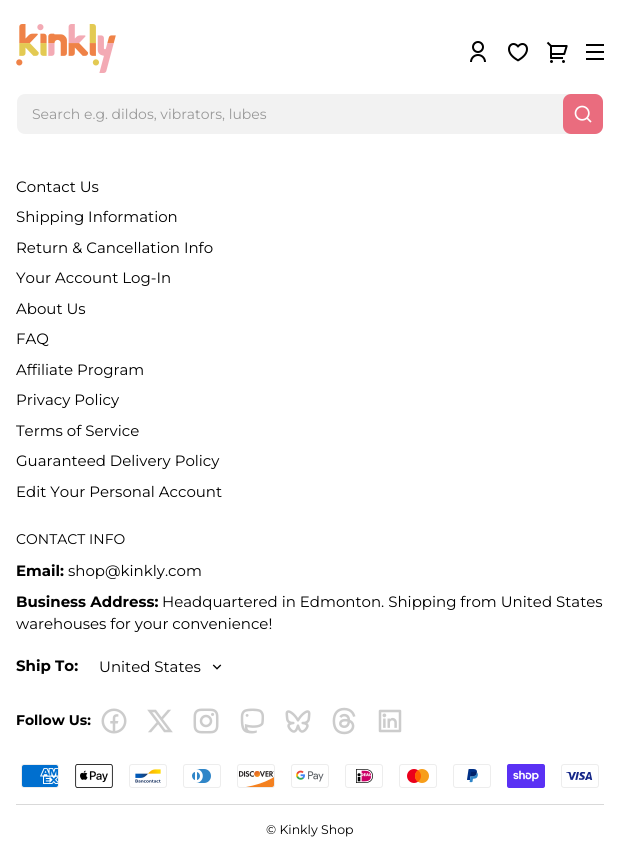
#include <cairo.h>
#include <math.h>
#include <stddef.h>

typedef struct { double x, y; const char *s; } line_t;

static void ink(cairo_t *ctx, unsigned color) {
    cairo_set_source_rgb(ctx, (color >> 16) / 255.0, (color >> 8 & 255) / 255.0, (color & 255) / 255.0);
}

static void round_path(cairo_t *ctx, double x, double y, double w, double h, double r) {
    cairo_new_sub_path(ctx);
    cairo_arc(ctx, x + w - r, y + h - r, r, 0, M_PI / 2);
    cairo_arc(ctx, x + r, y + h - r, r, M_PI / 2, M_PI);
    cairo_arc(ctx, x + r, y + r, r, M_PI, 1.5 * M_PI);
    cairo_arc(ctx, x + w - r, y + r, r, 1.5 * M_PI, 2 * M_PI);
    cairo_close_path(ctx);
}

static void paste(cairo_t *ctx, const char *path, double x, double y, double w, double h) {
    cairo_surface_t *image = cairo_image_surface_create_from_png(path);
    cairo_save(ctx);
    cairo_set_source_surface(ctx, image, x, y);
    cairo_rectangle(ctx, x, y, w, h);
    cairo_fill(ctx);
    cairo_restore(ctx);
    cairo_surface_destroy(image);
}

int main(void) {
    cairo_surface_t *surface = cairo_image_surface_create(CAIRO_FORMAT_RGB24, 620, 855);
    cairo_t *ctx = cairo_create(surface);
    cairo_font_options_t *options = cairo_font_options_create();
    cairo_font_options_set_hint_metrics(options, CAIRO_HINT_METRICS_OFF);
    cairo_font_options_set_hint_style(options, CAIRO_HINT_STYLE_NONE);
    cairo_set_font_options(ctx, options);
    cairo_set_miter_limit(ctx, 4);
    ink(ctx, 0xFFFFFF);
    cairo_paint(ctx);
    paste(ctx, "media/1.png", 16, 24, 100, 49);
    paste(ctx, "media/2.png", 470, 41, 16, 21);
    paste(ctx, "media/3.png", 508, 43, 20, 19);
    paste(ctx, "media/4.png", 546, 41, 22, 22);
    paste(ctx, "media/5.png", 586, 44, 18, 16);
    ink(ctx, 0xF2F2F2);
    round_path(ctx, 17, 94, 586, 40, 8);
    cairo_fill(ctx);
    cairo_select_font_face(ctx, "Montserrat", CAIRO_FONT_SLANT_NORMAL, CAIRO_FONT_WEIGHT_NORMAL);
    cairo_set_font_size(ctx, 14);
    ink(ctx, 0x999999);
    cairo_move_to(ctx, 32, 119);
    cairo_show_text(ctx, "Search e.g. dildos, vibrators, lubes");
    ink(ctx, 0xEA6C7E);
    round_path(ctx, 563, 94, 40, 40, 8);
    cairo_fill(ctx);
    paste(ctx, "media/6.png", 574, 105, 18, 18);
    cairo_set_font_size(ctx, 15);
    ink(ctx, 0x000000);
    {
        static const line_t items[] = {
            {16, 192, "Contact Us"},
            {16, 222, "Shipping Information"},
            {16, 253, "Return & Cancellation Info"},
            {16, 283, "Your Account Log-In"},
            {16, 314, "About Us"},
            {16, 344, "FAQ"},
            {16, 375, "Affiliate Program"},
            {16, 405, "Privacy Policy"},
            {16, 436, "Terms of Service"},
            {16, 466, "Guaranteed Delivery Policy"},
            {16, 497, "Edit Your Personal Account"},
        };
        for (size_t i = 0; i < sizeof items / sizeof *items; i++) {
            cairo_move_to(ctx, items[i].x, items[i].y);
            cairo_show_text(ctx, items[i].s);
        }
    }
    cairo_set_font_size(ctx, 14);
    cairo_move_to(ctx, 16, 544);
    cairo_show_text(ctx, "CONTACT INFO");
    cairo_select_font_face(ctx, "Montserrat", CAIRO_FONT_SLANT_NORMAL, CAIRO_FONT_WEIGHT_BOLD);
    cairo_set_font_size(ctx, 15);
    cairo_move_to(ctx, 16, 576);
    cairo_show_text(ctx, "Email:");
    cairo_select_font_face(ctx, "Montserrat", CAIRO_FONT_SLANT_NORMAL, CAIRO_FONT_WEIGHT_NORMAL);
    cairo_move_to(ctx, 68, 576);
    cairo_show_text(ctx, "shop@kinkly.com");
    cairo_select_font_face(ctx, "Montserrat", CAIRO_FONT_SLANT_NORMAL, CAIRO_FONT_WEIGHT_BOLD);
    cairo_move_to(ctx, 16, 607);
    cairo_show_text(ctx, "Business Address:");
    cairo_select_font_face(ctx, "Montserrat", CAIRO_FONT_SLANT_NORMAL, CAIRO_FONT_WEIGHT_NORMAL);
    cairo_move_to(ctx, 162, 607);
    cairo_show_text(ctx, "Headquartered in Edmonton. Shipping from United States");
    cairo_move_to(ctx, 16, 629);
    cairo_show_text(ctx, "warehouses for your convenience!");
    cairo_select_font_face(ctx, "Montserrat", CAIRO_FONT_SLANT_NORMAL, CAIRO_FONT_WEIGHT_BOLD);
    cairo_move_to(ctx, 16, 671);
    cairo_show_text(ctx, "Ship To:");
    cairo_select_font_face(ctx, "Montserrat", CAIRO_FONT_SLANT_NORMAL, CAIRO_FONT_WEIGHT_NORMAL);
    cairo_move_to(ctx, 99, 672);
    cairo_show_text(ctx, "United States");
    paste(ctx, "media/7.png", 212, 664, 10, 6);
    cairo_select_font_face(ctx, "Montserrat", CAIRO_FONT_SLANT_NORMAL, CAIRO_FONT_WEIGHT_BOLD);
    cairo_set_font_size(ctx, 14);
    cairo_move_to(ctx, 16, 725);
    cairo_show_text(ctx, "Follow Us:");
    paste(ctx, "media/8.png", 101, 708, 26, 26);
    paste(ctx, "media/9.png", 147, 709, 26, 24);
    paste(ctx, "media/10.png", 193, 708, 26, 26);
    paste(ctx, "media/11.png", 240, 708, 24, 26);
    paste(ctx, "media/12.png", 285, 710, 26, 23);
    paste(ctx, "media/13.png", 332, 707, 24, 28);
    paste(ctx, "media/14.png", 378, 709, 24, 24);
    paste(ctx, "media/15.png", 21, 764, 38, 24);
    paste(ctx, "media/16.png", 75, 764, 38, 24);
    paste(ctx, "media/17.png", 129, 764, 38, 24);
    paste(ctx, "media/18.png", 183, 764, 38, 24);
    paste(ctx, "media/19.png", 237, 764, 38, 24);
    paste(ctx, "media/20.png", 291, 764, 38, 24);
    paste(ctx, "media/21.png", 345, 764, 38, 24);
    paste(ctx, "media/22.png", 399, 764, 38, 24);
    paste(ctx, "media/23.png", 453, 764, 38, 24);
    paste(ctx, "media/24.png", 507, 764, 38, 24);
    paste(ctx, "media/25.png", 561, 764, 38, 24);
    ink(ctx, 0xD9D9D9);
    cairo_rectangle(ctx, 16, 804, 588, 1);
    cairo_fill(ctx);
    cairo_select_font_face(ctx, "Montserrat", CAIRO_FONT_SLANT_NORMAL, CAIRO_FONT_WEIGHT_NORMAL);
    cairo_set_font_size(ctx, 12.5);
    ink(ctx, 0x000000);
    cairo_move_to(ctx, 266, 834);
    cairo_show_text(ctx, "© Kinkly Shop");
    cairo_surface_write_to_png(surface, "image.png");
    cairo_font_options_destroy(options);
    cairo_destroy(ctx);
    cairo_surface_destroy(surface);
    return 0;
}
